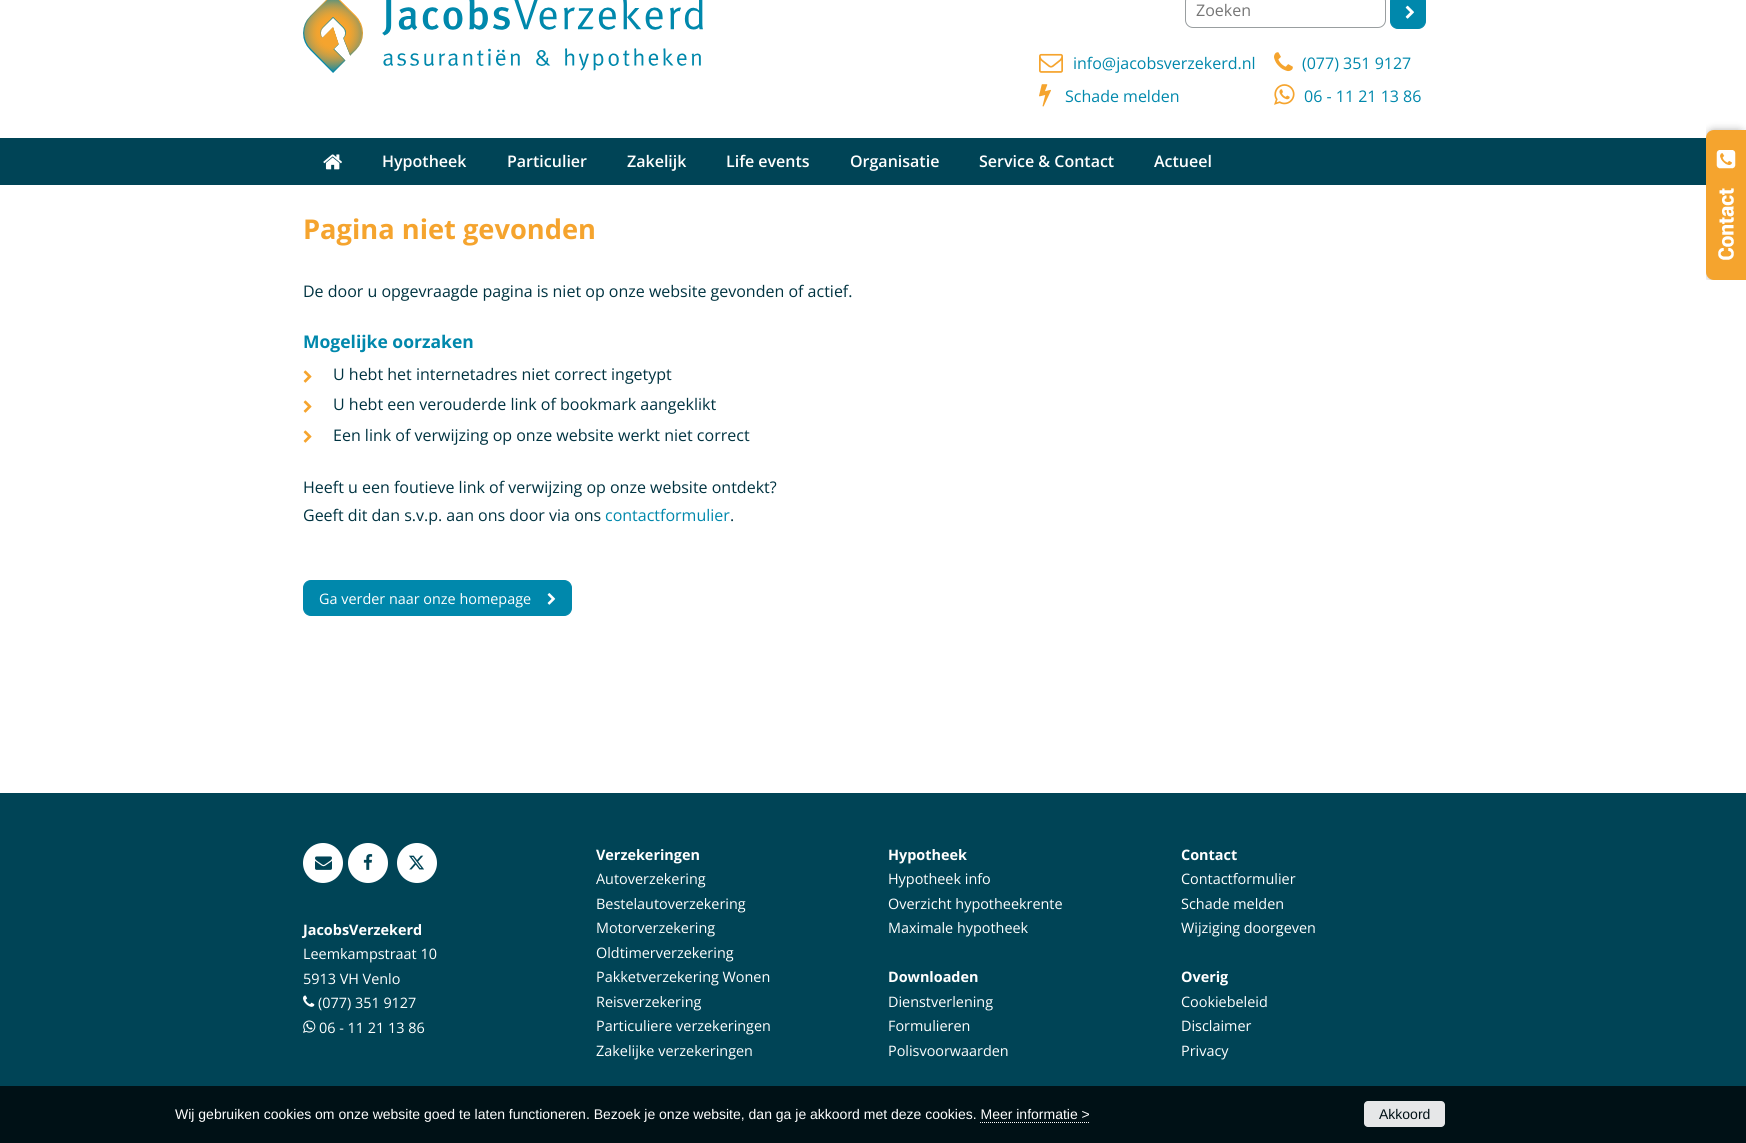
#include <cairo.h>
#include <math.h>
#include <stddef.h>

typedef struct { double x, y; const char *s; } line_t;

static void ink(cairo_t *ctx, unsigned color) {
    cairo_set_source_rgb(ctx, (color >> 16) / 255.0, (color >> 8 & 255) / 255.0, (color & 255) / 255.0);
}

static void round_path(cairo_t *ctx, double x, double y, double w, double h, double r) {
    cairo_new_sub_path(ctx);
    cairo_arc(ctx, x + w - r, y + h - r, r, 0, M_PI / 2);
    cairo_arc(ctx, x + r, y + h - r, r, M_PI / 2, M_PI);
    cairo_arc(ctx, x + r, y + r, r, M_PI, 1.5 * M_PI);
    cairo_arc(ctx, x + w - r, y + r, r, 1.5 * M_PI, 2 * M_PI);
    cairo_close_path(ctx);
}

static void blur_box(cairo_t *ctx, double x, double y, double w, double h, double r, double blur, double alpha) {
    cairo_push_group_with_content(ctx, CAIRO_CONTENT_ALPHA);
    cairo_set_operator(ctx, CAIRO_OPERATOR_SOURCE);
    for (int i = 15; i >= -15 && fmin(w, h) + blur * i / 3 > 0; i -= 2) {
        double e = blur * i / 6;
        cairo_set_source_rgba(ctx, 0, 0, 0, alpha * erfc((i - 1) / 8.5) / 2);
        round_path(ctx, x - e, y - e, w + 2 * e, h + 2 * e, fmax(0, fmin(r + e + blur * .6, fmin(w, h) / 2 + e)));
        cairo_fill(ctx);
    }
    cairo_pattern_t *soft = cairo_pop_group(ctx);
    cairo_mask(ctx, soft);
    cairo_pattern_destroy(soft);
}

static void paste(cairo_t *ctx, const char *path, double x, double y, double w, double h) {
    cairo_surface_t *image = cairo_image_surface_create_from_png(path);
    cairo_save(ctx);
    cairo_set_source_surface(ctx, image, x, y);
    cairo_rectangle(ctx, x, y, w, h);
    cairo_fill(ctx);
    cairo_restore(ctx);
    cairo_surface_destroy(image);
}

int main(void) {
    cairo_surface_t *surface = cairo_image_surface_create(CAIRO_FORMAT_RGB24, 1746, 1143);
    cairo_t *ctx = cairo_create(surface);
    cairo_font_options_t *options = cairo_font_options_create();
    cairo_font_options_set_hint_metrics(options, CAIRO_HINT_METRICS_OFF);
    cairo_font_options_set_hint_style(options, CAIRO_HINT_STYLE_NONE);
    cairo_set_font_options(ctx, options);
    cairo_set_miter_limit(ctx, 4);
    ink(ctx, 0xFFFFFF);
    cairo_paint(ctx);
    paste(ctx, "media/1.png", 303, 0, 400, 73);
    ink(ctx, 0xE6E6E6);
    cairo_new_path(ctx);
    cairo_move_to(ctx, 1193, -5);
    cairo_line_to(ctx, 1378, -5);
    cairo_curve_to(ctx, 1382, -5, 1385, -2, 1385, 2);
    cairo_line_to(ctx, 1385, 1);
    cairo_curve_to(ctx, 1385, -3, 1382, -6, 1378, -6);
    cairo_line_to(ctx, 1193, -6);
    cairo_curve_to(ctx, 1189, -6, 1186, -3, 1186, 1);
    cairo_line_to(ctx, 1186, 2);
    cairo_curve_to(ctx, 1186, -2, 1189, -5, 1193, -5);
    cairo_close_path(ctx);
    cairo_fill(ctx);
    round_path(ctx, 1185.5, -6.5, 200, 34, 7.5);
    ink(ctx, 0x999EA0);
    cairo_set_line_width(ctx, 1);
    cairo_stroke(ctx);
    cairo_select_font_face(ctx, "Open Sans", CAIRO_FONT_SLANT_NORMAL, CAIRO_FONT_WEIGHT_NORMAL);
    cairo_set_font_size(ctx, 16);
    ink(ctx, 0x757575);
    cairo_move_to(ctx, 1196, 16);
    cairo_show_text(ctx, "Zoeken");
    ink(ctx, 0x0088AC);
    round_path(ctx, 1390.5, -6.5, 35, 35, 7.5);
    cairo_fill_preserve(ctx);
    cairo_stroke(ctx);
    paste(ctx, "media/2.png", 1405, 5, 9, 14);
    paste(ctx, "media/3.png", 1039, 53, 24, 20);
    cairo_move_to(ctx, 1073, 69);
    cairo_show_text(ctx, "info@jacobsverzekerd.nl");
    paste(ctx, "media/4.png", 1039, 84, 12, 23);
    cairo_move_to(ctx, 1065, 102);
    cairo_show_text(ctx, "Schade melden");
    paste(ctx, "media/5.png", 1274, 52, 19, 20);
    cairo_move_to(ctx, 1302, 69);
    cairo_show_text(ctx, "(077) 351 9127");
    paste(ctx, "media/6.png", 1274, 84, 21, 21);
    cairo_move_to(ctx, 1304, 102);
    cairo_show_text(ctx, "06 - 11 21 13 86");
    ink(ctx, 0x004456);
    cairo_rectangle(ctx, 0, 138, 1706, 47);
    cairo_fill(ctx);
    paste(ctx, "media/7.png", 323, 154, 19, 16);
    cairo_select_font_face(ctx, "Open Sans SemiBold", CAIRO_FONT_SLANT_NORMAL, CAIRO_FONT_WEIGHT_NORMAL);
    ink(ctx, 0xFFFFFF);
    {
        static const line_t items[] = {
            {382, 167, "Hypotheek"},
            {507, 167, "Particulier"},
            {627, 167, "Zakelijk"},
            {726, 167, "Life events"},
            {850, 167, "Organisatie"},
            {979, 167, "Service & Contact"},
            {1154, 167, "Actueel"},
        };
        for (size_t i = 0; i < sizeof items / sizeof *items; i++) {
            cairo_move_to(ctx, items[i].x, items[i].y);
            cairo_show_text(ctx, items[i].s);
        }
    }
    cairo_select_font_face(ctx, "Open Sans", CAIRO_FONT_SLANT_NORMAL, CAIRO_FONT_WEIGHT_BOLD);
    cairo_set_font_size(ctx, 27.25);
    ink(ctx, 0xF5A42E);
    cairo_move_to(ctx, 303, 239);
    cairo_show_text(ctx, "Pagina niet gevonden");
    cairo_select_font_face(ctx, "Open Sans", CAIRO_FONT_SLANT_NORMAL, CAIRO_FONT_WEIGHT_NORMAL);
    cairo_set_font_size(ctx, 16);
    ink(ctx, 0x003341);
    cairo_move_to(ctx, 303, 297);
    cairo_show_text(ctx, "De door u opgevraagde pagina is niet op onze website gevonden of actief.");
    cairo_select_font_face(ctx, "Open Sans", CAIRO_FONT_SLANT_NORMAL, CAIRO_FONT_WEIGHT_BOLD);
    cairo_set_font_size(ctx, 17.5);
    ink(ctx, 0x0088AC);
    cairo_move_to(ctx, 303, 348);
    cairo_show_text(ctx, "Mogelijke oorzaken");
    paste(ctx, "media/8.png", 303, 370, 9, 13);
    cairo_select_font_face(ctx, "Open Sans", CAIRO_FONT_SLANT_NORMAL, CAIRO_FONT_WEIGHT_NORMAL);
    cairo_set_font_size(ctx, 16);
    ink(ctx, 0x003341);
    cairo_move_to(ctx, 333, 380);
    cairo_show_text(ctx, "U hebt het internetadres niet correct ingetypt");
    paste(ctx, "media/8.png", 303, 400, 9, 13);
    cairo_move_to(ctx, 333, 410);
    cairo_show_text(ctx, "U hebt een verouderde link of bookmark aangeklikt");
    paste(ctx, "media/8.png", 303, 430, 9, 13);
    {
        static const line_t items[] = {
            {333, 441, "Een link of verwijzing op onze website werkt niet correct"},
            {303, 493, "Heeft u een foutieve link of verwijzing op onze website ontdekt?"},
            {303, 521, "Geeft dit dan s.v.p. aan ons door via ons"},
        };
        for (size_t i = 0; i < sizeof items / sizeof *items; i++) {
            cairo_move_to(ctx, items[i].x, items[i].y);
            cairo_show_text(ctx, items[i].s);
        }
    }
    ink(ctx, 0x0088AC);
    cairo_move_to(ctx, 605, 521);
    cairo_show_text(ctx, "contactformulier");
    ink(ctx, 0x003341);
    cairo_move_to(ctx, 730, 521);
    cairo_show_text(ctx, ".");
    ink(ctx, 0x0088AC);
    round_path(ctx, 303.5, 580.5, 268, 35, 7.5);
    cairo_fill_preserve(ctx);
    cairo_stroke(ctx);
    cairo_set_font_size(ctx, 14.4);
    ink(ctx, 0xFFFFFF);
    cairo_move_to(ctx, 319, 604);
    cairo_show_text(ctx, "Ga verder naar onze homepage");
    paste(ctx, "media/9.png", 547, 593, 9, 12);
    cairo_save(ctx);
    cairo_rectangle(ctx, 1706, 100, 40, 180);
    cairo_clip(ctx);
    ink(ctx, 0x000000);
    blur_box(ctx, 1706, 130, 40, 150, 8, 4, 0.3);
    cairo_restore(ctx);
    ink(ctx, 0xF5A42E);
    cairo_new_path(ctx);
    cairo_move_to(ctx, 1714, 130);
    cairo_line_to(ctx, 1746, 130);
    cairo_line_to(ctx, 1746, 280);
    cairo_line_to(ctx, 1714, 280);
    cairo_curve_to(ctx, 1709.5, 280, 1706, 276.5, 1706, 272);
    cairo_line_to(ctx, 1706, 138);
    cairo_curve_to(ctx, 1706, 133.5, 1709.5, 130, 1714, 130);
    cairo_close_path(ctx);
    cairo_fill(ctx);
    paste(ctx, "media/10.png", 1716, 150, 20, 110);
    ink(ctx, 0x004456);
    cairo_rectangle(ctx, 0, 793, 1746, 293);
    cairo_fill(ctx);
    ink(ctx, 0xFFFFFF);
    cairo_arc(ctx, 323, 863, 20, 0, 2 * M_PI);
    cairo_fill(ctx);
    paste(ctx, "media/11.png", 315, 856, 17, 14);
    cairo_arc(ctx, 368, 863, 20, 0, 2 * M_PI);
    cairo_fill(ctx);
    paste(ctx, "media/12.png", 363, 854, 10, 16);
    cairo_arc(ctx, 417, 863, 20, 0, 2 * M_PI);
    cairo_fill(ctx);
    paste(ctx, "media/13.png", 409, 855, 15, 15);
    cairo_select_font_face(ctx, "Open Sans", CAIRO_FONT_SLANT_NORMAL, CAIRO_FONT_WEIGHT_BOLD);
    cairo_move_to(ctx, 303, 935);
    cairo_show_text(ctx, "JacobsVerzekerd");
    cairo_select_font_face(ctx, "Open Sans", CAIRO_FONT_SLANT_NORMAL, CAIRO_FONT_WEIGHT_NORMAL);
    cairo_move_to(ctx, 303, 959);
    cairo_show_text(ctx, "Leemkampstraat 10");
    cairo_move_to(ctx, 303, 984);
    cairo_show_text(ctx, "5913 VH Venlo");
    paste(ctx, "media/14.png", 303, 995, 12, 12);
    cairo_move_to(ctx, 318, 1008);
    cairo_show_text(ctx, "(077) 351 9127");
    paste(ctx, "media/15.png", 303, 1020, 13, 13);
    cairo_move_to(ctx, 319, 1033);
    cairo_show_text(ctx, "06 - 11 21 13 86");
    cairo_select_font_face(ctx, "Open Sans", CAIRO_FONT_SLANT_NORMAL, CAIRO_FONT_WEIGHT_BOLD);
    cairo_move_to(ctx, 596, 860);
    cairo_show_text(ctx, "Verzekeringen");
    cairo_select_font_face(ctx, "Open Sans", CAIRO_FONT_SLANT_NORMAL, CAIRO_FONT_WEIGHT_NORMAL);
    {
        static const line_t items[] = {
            {596, 884, "Autoverzekering"},
            {596, 909, "Bestelautoverzekering"},
            {596, 933, "Motorverzekering"},
            {596, 958, "Oldtimerverzekering"},
            {596, 982, "Pakketverzekering Wonen"},
            {596, 1007, "Reisverzekering"},
            {596, 1031, "Particuliere verzekeringen"},
            {596, 1056, "Zakelijke verzekeringen"},
        };
        for (size_t i = 0; i < sizeof items / sizeof *items; i++) {
            cairo_move_to(ctx, items[i].x, items[i].y);
            cairo_show_text(ctx, items[i].s);
        }
    }
    cairo_select_font_face(ctx, "Open Sans", CAIRO_FONT_SLANT_NORMAL, CAIRO_FONT_WEIGHT_BOLD);
    cairo_move_to(ctx, 888, 860);
    cairo_show_text(ctx, "Hypotheek");
    cairo_select_font_face(ctx, "Open Sans", CAIRO_FONT_SLANT_NORMAL, CAIRO_FONT_WEIGHT_NORMAL);
    {
        static const line_t items[] = {
            {888, 884, "Hypotheek info"},
            {888, 909, "Overzicht hypotheekrente"},
            {888, 933, "Maximale hypotheek"},
        };
        for (size_t i = 0; i < sizeof items / sizeof *items; i++) {
            cairo_move_to(ctx, items[i].x, items[i].y);
            cairo_show_text(ctx, items[i].s);
        }
    }
    cairo_select_font_face(ctx, "Open Sans", CAIRO_FONT_SLANT_NORMAL, CAIRO_FONT_WEIGHT_BOLD);
    cairo_move_to(ctx, 888, 982);
    cairo_show_text(ctx, "Downloaden");
    cairo_select_font_face(ctx, "Open Sans", CAIRO_FONT_SLANT_NORMAL, CAIRO_FONT_WEIGHT_NORMAL);
    {
        static const line_t items[] = {
            {888, 1007, "Dienstverlening"},
            {888, 1031, "Formulieren"},
            {888, 1056, "Polisvoorwaarden"},
        };
        for (size_t i = 0; i < sizeof items / sizeof *items; i++) {
            cairo_move_to(ctx, items[i].x, items[i].y);
            cairo_show_text(ctx, items[i].s);
        }
    }
    cairo_select_font_face(ctx, "Open Sans", CAIRO_FONT_SLANT_NORMAL, CAIRO_FONT_WEIGHT_BOLD);
    cairo_move_to(ctx, 1181, 860);
    cairo_show_text(ctx, "Contact");
    cairo_select_font_face(ctx, "Open Sans", CAIRO_FONT_SLANT_NORMAL, CAIRO_FONT_WEIGHT_NORMAL);
    {
        static const line_t items[] = {
            {1181, 884, "Contactformulier"},
            {1181, 909, "Schade melden"},
            {1181, 933, "Wijziging doorgeven"},
        };
        for (size_t i = 0; i < sizeof items / sizeof *items; i++) {
            cairo_move_to(ctx, items[i].x, items[i].y);
            cairo_show_text(ctx, items[i].s);
        }
    }
    cairo_select_font_face(ctx, "Open Sans", CAIRO_FONT_SLANT_NORMAL, CAIRO_FONT_WEIGHT_BOLD);
    cairo_move_to(ctx, 1181, 982);
    cairo_show_text(ctx, "Overig");
    cairo_select_font_face(ctx, "Open Sans", CAIRO_FONT_SLANT_NORMAL, CAIRO_FONT_WEIGHT_NORMAL);
    {
        static const line_t items[] = {
            {1181, 1007, "Cookiebeleid"},
            {1181, 1031, "Disclaimer"},
            {1181, 1056, "Privacy"},
        };
        for (size_t i = 0; i < sizeof items / sizeof *items; i++) {
            cairo_move_to(ctx, items[i].x, items[i].y);
            cairo_show_text(ctx, items[i].s);
        }
    }
    ink(ctx, 0x001116);
    cairo_rectangle(ctx, 0, 1086, 1746, 57);
    cairo_fill(ctx);
    cairo_select_font_face(ctx, "Liberation Sans", CAIRO_FONT_SLANT_NORMAL, CAIRO_FONT_WEIGHT_NORMAL);
    cairo_set_font_size(ctx, 14);
    ink(ctx, 0xFFFFFF);
    cairo_move_to(ctx, 175, 1119);
    cairo_show_text(ctx, "Wij gebruiken cookies om onze website goed te laten functioneren. Bezoek je onze website, dan ga je akkoord met deze cookies. Meer informatie >");
    cairo_new_path(ctx);
    cairo_move_to(ctx, 980, 1122.5);
    cairo_line_to(ctx, 1089, 1122.5);
    cairo_set_dash(ctx, (double[]){1, 1}, 2, 0);
    cairo_stroke(ctx);
    ink(ctx, 0xE6E7E8);
    round_path(ctx, 1364, 1101, 81, 26, 4);
    cairo_fill(ctx);
    ink(ctx, 0x001116);
    cairo_move_to(ctx, 1379, 1119);
    cairo_show_text(ctx, "Akkoord");
    cairo_surface_write_to_png(surface, "image.png");
    cairo_font_options_destroy(options);
    cairo_destroy(ctx);
    cairo_surface_destroy(surface);
    return 0;
}
